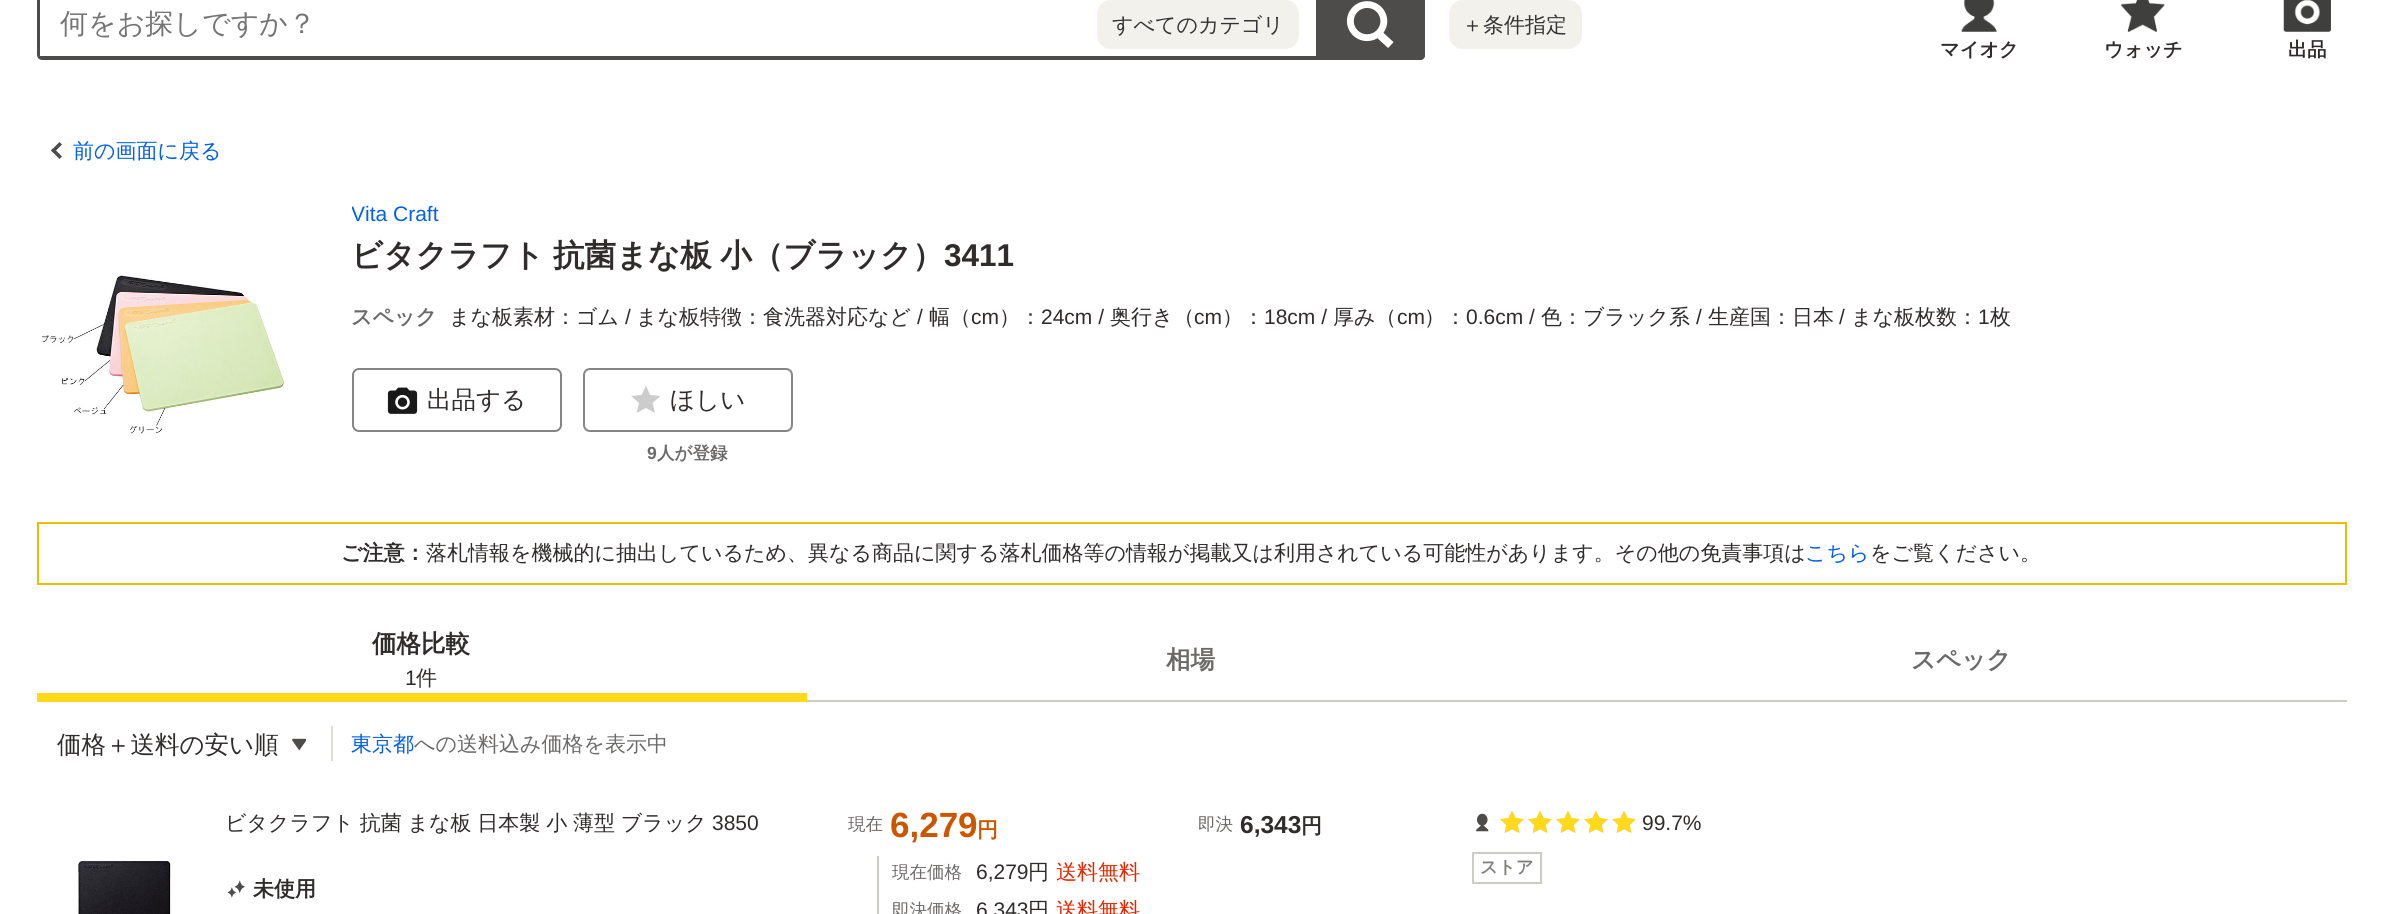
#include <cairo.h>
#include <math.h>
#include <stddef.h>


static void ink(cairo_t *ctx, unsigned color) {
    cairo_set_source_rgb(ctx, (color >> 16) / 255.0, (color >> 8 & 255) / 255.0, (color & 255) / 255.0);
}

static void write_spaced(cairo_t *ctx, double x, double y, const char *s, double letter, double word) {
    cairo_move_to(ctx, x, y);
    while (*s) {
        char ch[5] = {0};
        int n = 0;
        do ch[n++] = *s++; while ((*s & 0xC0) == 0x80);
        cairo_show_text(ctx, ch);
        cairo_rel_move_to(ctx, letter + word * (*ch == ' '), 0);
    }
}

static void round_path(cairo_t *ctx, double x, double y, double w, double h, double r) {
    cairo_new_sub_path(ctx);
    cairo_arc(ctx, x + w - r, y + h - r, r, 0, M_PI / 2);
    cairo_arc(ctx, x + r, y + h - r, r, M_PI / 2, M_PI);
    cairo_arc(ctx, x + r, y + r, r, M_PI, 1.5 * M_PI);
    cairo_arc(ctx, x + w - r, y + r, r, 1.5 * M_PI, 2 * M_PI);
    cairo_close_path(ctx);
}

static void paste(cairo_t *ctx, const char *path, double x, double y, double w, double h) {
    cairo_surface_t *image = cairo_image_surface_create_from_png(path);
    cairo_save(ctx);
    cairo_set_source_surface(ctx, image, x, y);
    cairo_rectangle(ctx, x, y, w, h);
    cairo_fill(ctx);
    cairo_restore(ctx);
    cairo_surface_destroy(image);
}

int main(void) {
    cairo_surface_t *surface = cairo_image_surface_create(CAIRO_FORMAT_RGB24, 2381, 914);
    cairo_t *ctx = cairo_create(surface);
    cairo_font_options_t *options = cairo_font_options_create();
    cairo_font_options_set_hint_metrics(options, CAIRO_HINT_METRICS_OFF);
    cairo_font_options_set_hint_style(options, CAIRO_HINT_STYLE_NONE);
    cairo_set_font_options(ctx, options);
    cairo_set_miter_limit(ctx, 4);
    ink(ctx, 0xFFFFFF);
    cairo_paint(ctx);
    round_path(ctx, 39, -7, 1384, 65, 3);
    ink(ctx, 0x4D4C4A);
    cairo_set_line_width(ctx, 4);
    cairo_stroke(ctx);
    ink(ctx, 0xFFFFFF);
    cairo_rectangle(ctx, 40, 0, 2, 56);
    cairo_fill(ctx);
    cairo_select_font_face(ctx, "WenQuanYi Zen Hei Medium", CAIRO_FONT_SLANT_NORMAL, CAIRO_FONT_WEIGHT_NORMAL);
    cairo_set_font_size(ctx, 28);
    ink(ctx, 0x757575);
    cairo_move_to(ctx, 60, 33);
    cairo_show_text(ctx, "何をお探しですか？");
    ink(ctx, 0xF2F1EB);
    round_path(ctx, 1097, 0, 202, 49, 14);
    cairo_fill(ctx);
    cairo_set_font_size(ctx, 21);
    ink(ctx, 0x333333);
    cairo_move_to(ctx, 1112, 32);
    cairo_show_text(ctx, "すべてのカテゴリ");
    ink(ctx, 0x4D4C4A);
    cairo_new_path(ctx);
    cairo_move_to(ctx, 1316, -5);
    cairo_line_to(ctx, 1420, -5);
    cairo_curve_to(ctx, 1423, -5, 1425, -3, 1425, 0);
    cairo_line_to(ctx, 1425, 55);
    cairo_curve_to(ctx, 1425, 58, 1423, 60, 1420, 60);
    cairo_line_to(ctx, 1316, 60);
    cairo_close_path(ctx);
    cairo_fill(ctx);
    paste(ctx, "media/1.png", 1346, 1, 48, 47);
    ink(ctx, 0xF2F1EB);
    round_path(ctx, 1449, 0, 133, 49, 14);
    cairo_fill(ctx);
    ink(ctx, 0x333333);
    cairo_move_to(ctx, 1462, 32);
    cairo_show_text(ctx, "＋条件指定");
    paste(ctx, "media/2.png", 1961, 0, 36, 32);
    cairo_select_font_face(ctx, "WenQuanYi Zen Hei", CAIRO_FONT_SLANT_NORMAL, CAIRO_FONT_WEIGHT_BOLD);
    cairo_set_font_size(ctx, 19.25);
    ink(ctx, 0x2F2C2B);
    cairo_move_to(ctx, 1940, 56);
    cairo_show_text(ctx, "マイオク");
    paste(ctx, "media/3.png", 2121, 0, 44, 32);
    cairo_move_to(ctx, 2104, 56);
    cairo_show_text(ctx, "ウォッチ");
    paste(ctx, "media/4.png", 2283, 0, 48, 32);
    cairo_move_to(ctx, 2288, 56);
    cairo_show_text(ctx, "出品");
    ink(ctx, 0x4D4C4A);
    cairo_new_path(ctx);
    cairo_move_to(ctx, 59.5, 159);
    cairo_line_to(ctx, 51, 150.5);
    cairo_line_to(ctx, 53.5, 148);
    cairo_line_to(ctx, 62, 156.5);
    cairo_close_path(ctx);
    cairo_fill(ctx);
    cairo_new_path(ctx);
    cairo_move_to(ctx, 53.5, 153);
    cairo_line_to(ctx, 51, 150.5);
    cairo_line_to(ctx, 59.5, 142);
    cairo_line_to(ctx, 62, 144.5);
    cairo_close_path(ctx);
    cairo_fill(ctx);
    cairo_select_font_face(ctx, "WenQuanYi Zen Hei Medium", CAIRO_FONT_SLANT_NORMAL, CAIRO_FONT_WEIGHT_NORMAL);
    cairo_set_font_size(ctx, 21);
    ink(ctx, 0x0260EA);
    cairo_move_to(ctx, 73, 158);
    cairo_show_text(ctx, "前の画面に戻る");
    paste(ctx, "media/5.png", 41, 275, 245, 159);
    cairo_save(ctx);
    cairo_rectangle(ctx, 352, 198, 1995, 28);
    cairo_clip(ctx);
    cairo_select_font_face(ctx, "Liberation Sans", CAIRO_FONT_SLANT_NORMAL, CAIRO_FONT_WEIGHT_NORMAL);
    cairo_move_to(ctx, 351, 221);
    cairo_show_text(ctx, "Vita Craft");
    cairo_restore(ctx);
    cairo_select_font_face(ctx, "WenQuanYi Zen Hei", CAIRO_FONT_SLANT_NORMAL, CAIRO_FONT_WEIGHT_BOLD);
    cairo_set_font_size(ctx, 31.5);
    ink(ctx, 0x2F2C2B);
    write_spaced(ctx, 351, 266, "ビタクラフト 抗菌まな板 小（ブラック）", 0, -1);
    cairo_select_font_face(ctx, "Liberation Sans", CAIRO_FONT_SLANT_NORMAL, CAIRO_FONT_WEIGHT_BOLD);
    cairo_move_to(ctx, 944, 266);
    cairo_show_text(ctx, "3411");
    cairo_select_font_face(ctx, "WenQuanYi Zen Hei", CAIRO_FONT_SLANT_NORMAL, CAIRO_FONT_WEIGHT_BOLD);
    cairo_set_font_size(ctx, 21);
    ink(ctx, 0x6C6A69);
    cairo_move_to(ctx, 351, 324);
    cairo_show_text(ctx, "スペック");
    cairo_select_font_face(ctx, "WenQuanYi Zen Hei Medium", CAIRO_FONT_SLANT_NORMAL, CAIRO_FONT_WEIGHT_NORMAL);
    ink(ctx, 0x2F2C2B);
    cairo_move_to(ctx, 449, 324);
    cairo_show_text(ctx, "まな板素材：ゴム");
    cairo_select_font_face(ctx, "Liberation Sans", CAIRO_FONT_SLANT_NORMAL, CAIRO_FONT_WEIGHT_NORMAL);
    cairo_move_to(ctx, 625, 324);
    cairo_show_text(ctx, "/");
    cairo_select_font_face(ctx, "WenQuanYi Zen Hei Medium", CAIRO_FONT_SLANT_NORMAL, CAIRO_FONT_WEIGHT_NORMAL);
    cairo_move_to(ctx, 636, 324);
    cairo_show_text(ctx, "まな板特徴：食洗器対応など");
    cairo_select_font_face(ctx, "Liberation Sans", CAIRO_FONT_SLANT_NORMAL, CAIRO_FONT_WEIGHT_NORMAL);
    cairo_move_to(ctx, 917, 324);
    cairo_show_text(ctx, "/");
    cairo_select_font_face(ctx, "WenQuanYi Zen Hei Medium", CAIRO_FONT_SLANT_NORMAL, CAIRO_FONT_WEIGHT_NORMAL);
    cairo_move_to(ctx, 929, 324);
    cairo_show_text(ctx, "幅（");
    cairo_select_font_face(ctx, "Liberation Sans", CAIRO_FONT_SLANT_NORMAL, CAIRO_FONT_WEIGHT_NORMAL);
    cairo_move_to(ctx, 971, 324);
    cairo_show_text(ctx, "cm");
    cairo_select_font_face(ctx, "WenQuanYi Zen Hei Medium", CAIRO_FONT_SLANT_NORMAL, CAIRO_FONT_WEIGHT_NORMAL);
    cairo_move_to(ctx, 999, 324);
    cairo_show_text(ctx, "）：");
    cairo_select_font_face(ctx, "Liberation Sans", CAIRO_FONT_SLANT_NORMAL, CAIRO_FONT_WEIGHT_NORMAL);
    cairo_move_to(ctx, 1041, 324);
    cairo_show_text(ctx, "24cm /");
    cairo_select_font_face(ctx, "WenQuanYi Zen Hei Medium", CAIRO_FONT_SLANT_NORMAL, CAIRO_FONT_WEIGHT_NORMAL);
    cairo_move_to(ctx, 1110, 324);
    cairo_show_text(ctx, "奥行き（");
    cairo_select_font_face(ctx, "Liberation Sans", CAIRO_FONT_SLANT_NORMAL, CAIRO_FONT_WEIGHT_NORMAL);
    cairo_move_to(ctx, 1194, 324);
    cairo_show_text(ctx, "cm");
    cairo_select_font_face(ctx, "WenQuanYi Zen Hei Medium", CAIRO_FONT_SLANT_NORMAL, CAIRO_FONT_WEIGHT_NORMAL);
    cairo_move_to(ctx, 1222, 324);
    cairo_show_text(ctx, "）：");
    cairo_select_font_face(ctx, "Liberation Sans", CAIRO_FONT_SLANT_NORMAL, CAIRO_FONT_WEIGHT_NORMAL);
    cairo_move_to(ctx, 1264, 324);
    cairo_show_text(ctx, "18cm /");
    cairo_select_font_face(ctx, "WenQuanYi Zen Hei Medium", CAIRO_FONT_SLANT_NORMAL, CAIRO_FONT_WEIGHT_NORMAL);
    cairo_move_to(ctx, 1333, 324);
    cairo_show_text(ctx, "厚み（");
    cairo_select_font_face(ctx, "Liberation Sans", CAIRO_FONT_SLANT_NORMAL, CAIRO_FONT_WEIGHT_NORMAL);
    cairo_move_to(ctx, 1397, 324);
    cairo_show_text(ctx, "cm");
    cairo_select_font_face(ctx, "WenQuanYi Zen Hei Medium", CAIRO_FONT_SLANT_NORMAL, CAIRO_FONT_WEIGHT_NORMAL);
    cairo_move_to(ctx, 1424, 324);
    cairo_show_text(ctx, "）：");
    cairo_select_font_face(ctx, "Liberation Sans", CAIRO_FONT_SLANT_NORMAL, CAIRO_FONT_WEIGHT_NORMAL);
    cairo_move_to(ctx, 1466, 324);
    cairo_show_text(ctx, "0.6cm /");
    cairo_select_font_face(ctx, "WenQuanYi Zen Hei Medium", CAIRO_FONT_SLANT_NORMAL, CAIRO_FONT_WEIGHT_NORMAL);
    cairo_move_to(ctx, 1541, 324);
    cairo_show_text(ctx, "色：ブラック系");
    cairo_select_font_face(ctx, "Liberation Sans", CAIRO_FONT_SLANT_NORMAL, CAIRO_FONT_WEIGHT_NORMAL);
    cairo_move_to(ctx, 1696, 324);
    cairo_show_text(ctx, "/");
    cairo_select_font_face(ctx, "WenQuanYi Zen Hei Medium", CAIRO_FONT_SLANT_NORMAL, CAIRO_FONT_WEIGHT_NORMAL);
    cairo_move_to(ctx, 1708, 324);
    cairo_show_text(ctx, "生産国：日本");
    cairo_select_font_face(ctx, "Liberation Sans", CAIRO_FONT_SLANT_NORMAL, CAIRO_FONT_WEIGHT_NORMAL);
    cairo_move_to(ctx, 1839, 324);
    cairo_show_text(ctx, "/");
    cairo_select_font_face(ctx, "WenQuanYi Zen Hei Medium", CAIRO_FONT_SLANT_NORMAL, CAIRO_FONT_WEIGHT_NORMAL);
    cairo_move_to(ctx, 1851, 324);
    cairo_show_text(ctx, "まな板枚数：");
    cairo_select_font_face(ctx, "Liberation Sans", CAIRO_FONT_SLANT_NORMAL, CAIRO_FONT_WEIGHT_NORMAL);
    cairo_move_to(ctx, 1978, 324);
    cairo_show_text(ctx, "1");
    cairo_select_font_face(ctx, "WenQuanYi Zen Hei Medium", CAIRO_FONT_SLANT_NORMAL, CAIRO_FONT_WEIGHT_NORMAL);
    cairo_move_to(ctx, 1990, 324);
    cairo_show_text(ctx, "枚");
    round_path(ctx, 353, 369, 208, 62, 6);
    ink(ctx, 0x878685);
    cairo_set_line_width(ctx, 2);
    cairo_stroke(ctx);
    paste(ctx, "media/6.png", 387, 387, 31, 27);
    cairo_set_font_size(ctx, 24.5);
    ink(ctx, 0x2F2C2B);
    cairo_move_to(ctx, 427, 408);
    cairo_show_text(ctx, "出品する");
    round_path(ctx, 584, 369, 208, 62, 6);
    ink(ctx, 0x878685);
    cairo_stroke(ctx);
    ink(ctx, 0xCCCCCC);
    cairo_new_path(ctx);
    cairo_move_to(ctx, 646, 408);
    cairo_line_to(ctx, 655, 413);
    cairo_line_to(ctx, 652.5, 403);
    cairo_line_to(ctx, 660.5, 396);
    cairo_line_to(ctx, 650, 395);
    cairo_line_to(ctx, 646, 385.5);
    cairo_line_to(ctx, 641.5, 395);
    cairo_line_to(ctx, 631, 396);
    cairo_line_to(ctx, 639, 403);
    cairo_line_to(ctx, 636.5, 413);
    cairo_close_path(ctx);
    cairo_fill(ctx);
    ink(ctx, 0x2F2C2B);
    cairo_move_to(ctx, 670, 408);
    cairo_show_text(ctx, "ほしい");
    cairo_select_font_face(ctx, "Liberation Sans", CAIRO_FONT_SLANT_NORMAL, CAIRO_FONT_WEIGHT_BOLD);
    cairo_set_font_size(ctx, 17.5);
    ink(ctx, 0x6C6A69);
    cairo_move_to(ctx, 647, 459);
    cairo_show_text(ctx, "9");
    cairo_select_font_face(ctx, "WenQuanYi Zen Hei", CAIRO_FONT_SLANT_NORMAL, CAIRO_FONT_WEIGHT_BOLD);
    cairo_move_to(ctx, 657, 459);
    cairo_show_text(ctx, "人が登録");
    cairo_rectangle(ctx, 38, 523, 2308, 61);
    ink(ctx, 0xE5BF00);
    cairo_stroke(ctx);
    cairo_set_font_size(ctx, 21);
    ink(ctx, 0x2F2C2B);
    cairo_move_to(ctx, 341, 560);
    cairo_show_text(ctx, "ご注意：");
    cairo_select_font_face(ctx, "WenQuanYi Zen Hei Medium", CAIRO_FONT_SLANT_NORMAL, CAIRO_FONT_WEIGHT_NORMAL);
    cairo_move_to(ctx, 426, 560);
    cairo_show_text(ctx, "落札情報を機械的に抽出しているため、異なる商品に関する落札価格等の情報が掲載又は利用されている可能性があります。その他の免責事項は");
    ink(ctx, 0x0260EA);
    cairo_move_to(ctx, 1805, 560);
    cairo_show_text(ctx, "こちら");
    ink(ctx, 0x2F2C2B);
    cairo_move_to(ctx, 1870, 560);
    cairo_show_text(ctx, "をご覧ください。");
    ink(ctx, 0xCCCBC6);
    cairo_rectangle(ctx, 807, 700, 1540, 2);
    cairo_fill(ctx);
    cairo_select_font_face(ctx, "WenQuanYi Zen Hei", CAIRO_FONT_SLANT_NORMAL, CAIRO_FONT_WEIGHT_BOLD);
    cairo_set_font_size(ctx, 24.5);
    ink(ctx, 0x2F2C2B);
    cairo_move_to(ctx, 372, 652);
    cairo_show_text(ctx, "価格比較");
    cairo_select_font_face(ctx, "Liberation Sans", CAIRO_FONT_SLANT_NORMAL, CAIRO_FONT_WEIGHT_NORMAL);
    cairo_set_font_size(ctx, 21);
    cairo_move_to(ctx, 405, 685);
    cairo_show_text(ctx, "1");
    cairo_select_font_face(ctx, "WenQuanYi Zen Hei Medium", CAIRO_FONT_SLANT_NORMAL, CAIRO_FONT_WEIGHT_NORMAL);
    cairo_move_to(ctx, 416, 685);
    cairo_show_text(ctx, "件");
    ink(ctx, 0xFFD91A);
    cairo_rectangle(ctx, 37, 693, 770, 9);
    cairo_fill(ctx);
    cairo_select_font_face(ctx, "WenQuanYi Zen Hei", CAIRO_FONT_SLANT_NORMAL, CAIRO_FONT_WEIGHT_BOLD);
    cairo_set_font_size(ctx, 24.5);
    ink(ctx, 0x6C6A69);
    cairo_move_to(ctx, 1166, 668);
    cairo_show_text(ctx, "相場");
    cairo_move_to(ctx, 1911, 668);
    cairo_show_text(ctx, "スペック");
    cairo_select_font_face(ctx, "WenQuanYi Zen Hei Medium", CAIRO_FONT_SLANT_NORMAL, CAIRO_FONT_WEIGHT_NORMAL);
    ink(ctx, 0x2F2C2B);
    cairo_move_to(ctx, 57, 753);
    cairo_show_text(ctx, "価格＋送料の安い順");
    paste(ctx, "media/7.png", 292, 738, 14, 13);
    ink(ctx, 0xDEDDD6);
    cairo_rectangle(ctx, 331, 726, 2, 35);
    cairo_fill(ctx);
    cairo_set_font_size(ctx, 21);
    ink(ctx, 0x0260EA);
    cairo_move_to(ctx, 351, 751);
    cairo_show_text(ctx, "東京都");
    ink(ctx, 0x6C6A69);
    cairo_move_to(ctx, 414, 751);
    cairo_show_text(ctx, "への送料込み価格を表示中");
    paste(ctx, "media/8.png", 74, 860, 98, 54);
    ink(ctx, 0x2F2C2B);
    write_spaced(ctx, 225, 830, "ビタクラフト 抗菌 まな板 日本製 小 薄型 ブラック", 0, -0.5);
    cairo_select_font_face(ctx, "Liberation Sans", CAIRO_FONT_SLANT_NORMAL, CAIRO_FONT_WEIGHT_NORMAL);
    cairo_move_to(ctx, 712, 830);
    cairo_show_text(ctx, "3850");
    cairo_select_font_face(ctx, "WenQuanYi Zen Hei Medium", CAIRO_FONT_SLANT_NORMAL, CAIRO_FONT_WEIGHT_NORMAL);
    cairo_set_font_size(ctx, 17.5);
    ink(ctx, 0x6C6A69);
    cairo_move_to(ctx, 848, 830);
    cairo_show_text(ctx, "現在");
    cairo_select_font_face(ctx, "Liberation Sans", CAIRO_FONT_SLANT_NORMAL, CAIRO_FONT_WEIGHT_BOLD);
    cairo_set_font_size(ctx, 35);
    ink(ctx, 0xCC5500);
    cairo_move_to(ctx, 890, 837);
    cairo_show_text(ctx, "6,279");
    cairo_select_font_face(ctx, "WenQuanYi Zen Hei", CAIRO_FONT_SLANT_NORMAL, CAIRO_FONT_WEIGHT_BOLD);
    cairo_set_font_size(ctx, 21);
    cairo_move_to(ctx, 977, 837);
    cairo_show_text(ctx, "円");
    cairo_select_font_face(ctx, "WenQuanYi Zen Hei Medium", CAIRO_FONT_SLANT_NORMAL, CAIRO_FONT_WEIGHT_NORMAL);
    cairo_set_font_size(ctx, 17.5);
    ink(ctx, 0x6C6A69);
    cairo_move_to(ctx, 1198, 830);
    cairo_show_text(ctx, "即決");
    cairo_select_font_face(ctx, "Liberation Sans", CAIRO_FONT_SLANT_NORMAL, CAIRO_FONT_WEIGHT_BOLD);
    cairo_set_font_size(ctx, 24.5);
    ink(ctx, 0x2F2C2B);
    cairo_move_to(ctx, 1240, 833);
    cairo_show_text(ctx, "6,343");
    cairo_select_font_face(ctx, "WenQuanYi Zen Hei", CAIRO_FONT_SLANT_NORMAL, CAIRO_FONT_WEIGHT_BOLD);
    cairo_set_font_size(ctx, 21);
    cairo_move_to(ctx, 1301, 833);
    cairo_show_text(ctx, "円");
    ink(ctx, 0xCCCBC6);
    cairo_rectangle(ctx, 877, 856, 2, 58);
    cairo_fill(ctx);
    cairo_select_font_face(ctx, "WenQuanYi Zen Hei Medium", CAIRO_FONT_SLANT_NORMAL, CAIRO_FONT_WEIGHT_NORMAL);
    cairo_set_font_size(ctx, 17.5);
    ink(ctx, 0x6C6A69);
    cairo_move_to(ctx, 892, 878);
    cairo_show_text(ctx, "現在価格");
    cairo_select_font_face(ctx, "Liberation Sans", CAIRO_FONT_SLANT_NORMAL, CAIRO_FONT_WEIGHT_NORMAL);
    cairo_set_font_size(ctx, 21);
    ink(ctx, 0x2F2C2B);
    cairo_move_to(ctx, 976, 879);
    cairo_show_text(ctx, "6,279");
    cairo_select_font_face(ctx, "WenQuanYi Zen Hei Medium", CAIRO_FONT_SLANT_NORMAL, CAIRO_FONT_WEIGHT_NORMAL);
    cairo_move_to(ctx, 1028, 879);
    cairo_show_text(ctx, "円");
    ink(ctx, 0xE52600);
    cairo_move_to(ctx, 1056, 879);
    cairo_show_text(ctx, "送料無料");
    cairo_set_font_size(ctx, 17.5);
    ink(ctx, 0x6C6A69);
    cairo_move_to(ctx, 892, 916);
    cairo_show_text(ctx, "即決価格");
    cairo_select_font_face(ctx, "Liberation Sans", CAIRO_FONT_SLANT_NORMAL, CAIRO_FONT_WEIGHT_NORMAL);
    cairo_set_font_size(ctx, 21);
    ink(ctx, 0x2F2C2B);
    cairo_move_to(ctx, 976, 917);
    cairo_show_text(ctx, "6,343");
    cairo_select_font_face(ctx, "WenQuanYi Zen Hei Medium", CAIRO_FONT_SLANT_NORMAL, CAIRO_FONT_WEIGHT_NORMAL);
    cairo_move_to(ctx, 1028, 917);
    cairo_show_text(ctx, "円");
    ink(ctx, 0xE52600);
    cairo_move_to(ctx, 1056, 917);
    cairo_show_text(ctx, "送料無料");
    paste(ctx, "media/9.png", 1476, 813, 13, 19);
    paste(ctx, "media/10.png", 1500, 811, 24, 22);
    paste(ctx, "media/11.png", 1500, 811, 24, 22);
    paste(ctx, "media/10.png", 1528, 811, 24, 22);
    paste(ctx, "media/11.png", 1528, 811, 24, 22);
    paste(ctx, "media/10.png", 1556, 811, 24, 22);
    paste(ctx, "media/11.png", 1556, 811, 24, 22);
    paste(ctx, "media/10.png", 1584, 811, 24, 22);
    paste(ctx, "media/11.png", 1584, 811, 24, 22);
    paste(ctx, "media/10.png", 1612, 811, 24, 22);
    paste(ctx, "media/12.png", 1612, 811, 23, 22);
    cairo_select_font_face(ctx, "Liberation Sans", CAIRO_FONT_SLANT_NORMAL, CAIRO_FONT_WEIGHT_NORMAL);
    ink(ctx, 0x2F2C2B);
    cairo_move_to(ctx, 1642, 830);
    cairo_show_text(ctx, "99.7%");
    cairo_rectangle(ctx, 1473, 853, 68, 30);
    ink(ctx, 0xCCCBC6);
    cairo_stroke(ctx);
    cairo_select_font_face(ctx, "WenQuanYi Zen Hei", CAIRO_FONT_SLANT_NORMAL, CAIRO_FONT_WEIGHT_BOLD);
    cairo_set_font_size(ctx, 17.5);
    ink(ctx, 0x807F7C);
    cairo_move_to(ctx, 1480, 873);
    cairo_show_text(ctx, "ストア");
    paste(ctx, "media/13.png", 227, 880, 18, 18);
    cairo_set_font_size(ctx, 21);
    ink(ctx, 0x2F2C2B);
    cairo_move_to(ctx, 253, 896);
    cairo_show_text(ctx, "未使用");
    cairo_surface_write_to_png(surface, "image.png");
    cairo_font_options_destroy(options);
    cairo_destroy(ctx);
    cairo_surface_destroy(surface);
    return 0;
}
